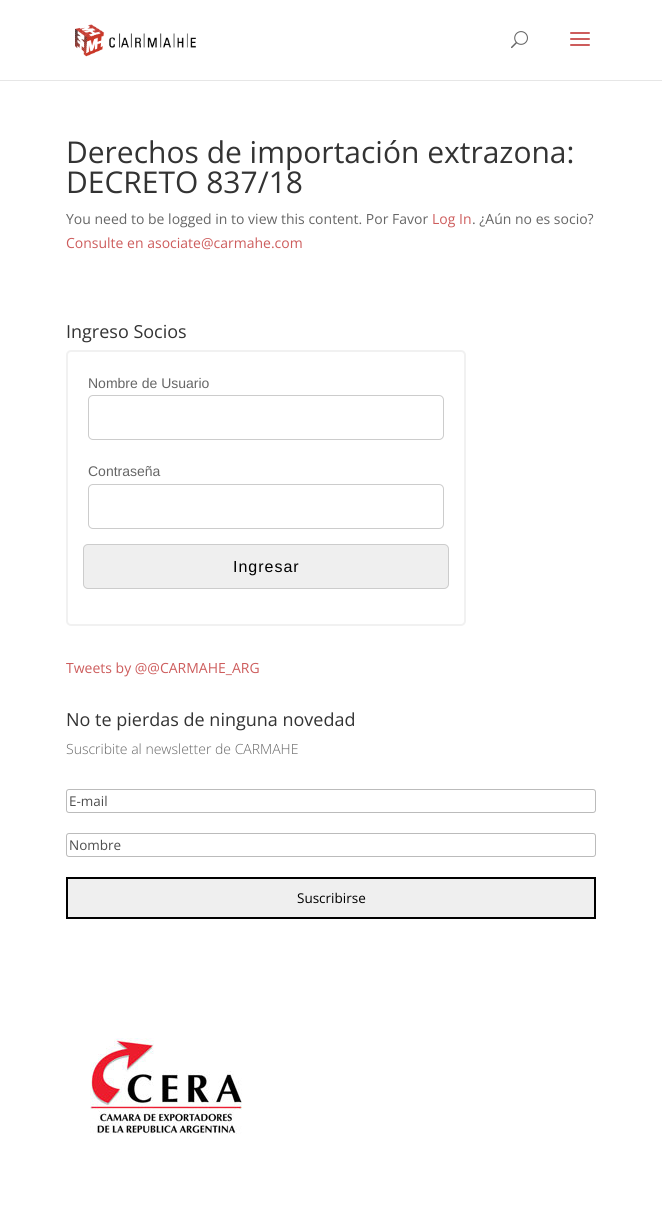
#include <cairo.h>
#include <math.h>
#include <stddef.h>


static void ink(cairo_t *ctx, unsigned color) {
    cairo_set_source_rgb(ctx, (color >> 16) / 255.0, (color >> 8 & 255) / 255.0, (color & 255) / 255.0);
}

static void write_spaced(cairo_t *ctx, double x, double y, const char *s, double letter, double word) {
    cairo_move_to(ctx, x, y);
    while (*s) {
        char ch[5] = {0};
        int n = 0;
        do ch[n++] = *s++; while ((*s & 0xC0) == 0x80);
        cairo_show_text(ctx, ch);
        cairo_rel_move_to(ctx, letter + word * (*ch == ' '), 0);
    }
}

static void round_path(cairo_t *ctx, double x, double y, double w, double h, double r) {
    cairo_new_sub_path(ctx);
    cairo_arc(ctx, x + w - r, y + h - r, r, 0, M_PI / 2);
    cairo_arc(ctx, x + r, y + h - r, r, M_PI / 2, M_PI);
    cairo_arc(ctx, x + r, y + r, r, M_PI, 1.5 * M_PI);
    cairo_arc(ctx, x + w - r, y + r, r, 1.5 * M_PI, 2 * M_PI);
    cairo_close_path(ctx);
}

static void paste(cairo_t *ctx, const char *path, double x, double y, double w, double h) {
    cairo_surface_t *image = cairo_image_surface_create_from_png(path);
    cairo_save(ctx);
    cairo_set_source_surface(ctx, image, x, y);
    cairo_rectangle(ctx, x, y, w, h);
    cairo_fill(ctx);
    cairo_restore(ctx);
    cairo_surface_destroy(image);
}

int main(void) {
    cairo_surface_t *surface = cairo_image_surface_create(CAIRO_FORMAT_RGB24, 662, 1206);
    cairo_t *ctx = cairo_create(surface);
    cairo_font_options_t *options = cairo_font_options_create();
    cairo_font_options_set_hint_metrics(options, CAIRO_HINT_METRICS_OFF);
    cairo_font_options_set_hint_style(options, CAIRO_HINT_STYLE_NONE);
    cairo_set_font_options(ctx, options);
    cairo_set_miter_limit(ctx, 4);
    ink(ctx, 0xFFFFFF);
    cairo_paint(ctx);
    ink(ctx, 0xE6E6E6);
    cairo_rectangle(ctx, 0, 80, 662, 1);
    cairo_fill(ctx);
    paste(ctx, "media/1.png", 75, 24, 121, 33);
    paste(ctx, "media/2.png", 511, 31, 17, 18);
    paste(ctx, "media/3.png", 570, 32, 20, 14);
    cairo_select_font_face(ctx, "Open Sans", CAIRO_FONT_SLANT_NORMAL, CAIRO_FONT_WEIGHT_NORMAL);
    cairo_set_font_size(ctx, 30);
    ink(ctx, 0x333333);
    cairo_move_to(ctx, 66, 163);
    cairo_show_text(ctx, "Derechos de importación extrazona:");
    cairo_move_to(ctx, 66, 193);
    cairo_show_text(ctx, "DECRETO 837/18");
    cairo_set_font_size(ctx, 14);
    ink(ctx, 0x666666);
    cairo_move_to(ctx, 66, 224);
    cairo_show_text(ctx, "You need to be logged in to view this content. Por Favor");
    ink(ctx, 0xCD5C5C);
    cairo_move_to(ctx, 432, 224);
    cairo_show_text(ctx, "Log In");
    ink(ctx, 0x666666);
    cairo_move_to(ctx, 472, 224);
    cairo_show_text(ctx, ". ¿Aún no es socio?");
    ink(ctx, 0xCD5C5C);
    cairo_move_to(ctx, 66, 248);
    cairo_show_text(ctx, "Consulte en asociate@carmahe.com");
    cairo_set_font_size(ctx, 18);
    ink(ctx, 0x333333);
    cairo_move_to(ctx, 66, 338);
    cairo_show_text(ctx, "Ingreso Socios");
    round_path(ctx, 67, 351, 398, 274, 4);
    ink(ctx, 0xF1F1F1);
    cairo_stroke(ctx);
    cairo_select_font_face(ctx, "Liberation Sans", CAIRO_FONT_SLANT_NORMAL, CAIRO_FONT_WEIGHT_NORMAL);
    cairo_set_font_size(ctx, 14);
    ink(ctx, 0x666666);
    cairo_move_to(ctx, 88, 388);
    cairo_show_text(ctx, "Nombre de Usuario");
    round_path(ctx, 88.5, 395.5, 355, 44, 4.5);
    ink(ctx, 0xCCCCCC);
    cairo_set_line_width(ctx, 1);
    cairo_stroke(ctx);
    ink(ctx, 0x666666);
    cairo_move_to(ctx, 88, 476);
    cairo_show_text(ctx, "Contraseña");
    round_path(ctx, 88.5, 484.5, 355, 44, 4.5);
    ink(ctx, 0xCCCCCC);
    cairo_stroke(ctx);
    ink(ctx, 0xEFEFEF);
    round_path(ctx, 83.5, 544.5, 365, 44, 4.5);
    cairo_fill_preserve(ctx);
    ink(ctx, 0xCCCCCC);
    cairo_stroke(ctx);
    cairo_set_font_size(ctx, 16);
    ink(ctx, 0x000000);
    write_spaced(ctx, 233, 572, "Ingresar", 1, 0);
    cairo_select_font_face(ctx, "Open Sans", CAIRO_FONT_SLANT_NORMAL, CAIRO_FONT_WEIGHT_NORMAL);
    cairo_set_font_size(ctx, 14);
    ink(ctx, 0xCD5C5C);
    cairo_move_to(ctx, 66, 673);
    cairo_show_text(ctx, "Tweets by @@CARMAHE_ARG");
    cairo_set_font_size(ctx, 18);
    ink(ctx, 0x333333);
    cairo_move_to(ctx, 66, 726);
    cairo_show_text(ctx, "No te pierdas de ninguna novedad");
    cairo_select_font_face(ctx, "Open Sans Light", CAIRO_FONT_SLANT_NORMAL, CAIRO_FONT_WEIGHT_NORMAL);
    cairo_set_font_size(ctx, 14);
    ink(ctx, 0x666666);
    cairo_move_to(ctx, 66, 754);
    cairo_show_text(ctx, "Suscribite al newsletter de CARMAHE");
    round_path(ctx, 66.5, 789.5, 529, 23, 2.5);
    ink(ctx, 0xBBBBBB);
    cairo_stroke(ctx);
    cairo_select_font_face(ctx, "Open Sans", CAIRO_FONT_SLANT_NORMAL, CAIRO_FONT_WEIGHT_NORMAL);
    cairo_set_font_size(ctx, 13.5);
    ink(ctx, 0x4E4E4E);
    cairo_move_to(ctx, 69, 806);
    cairo_show_text(ctx, "E-mail");
    round_path(ctx, 66.5, 833.5, 529, 23, 2.5);
    ink(ctx, 0xBBBBBB);
    cairo_stroke(ctx);
    ink(ctx, 0x4E4E4E);
    cairo_move_to(ctx, 69, 850);
    cairo_show_text(ctx, "Nombre");
    ink(ctx, 0xEFEFEF);
    cairo_rectangle(ctx, 67, 878, 528, 40);
    cairo_fill_preserve(ctx);
    ink(ctx, 0x000000);
    cairo_set_line_width(ctx, 2);
    cairo_stroke(ctx);
    cairo_move_to(ctx, 297, 903);
    cairo_show_text(ctx, "Suscribirse");
    paste(ctx, "media/4.png", 90, 1038, 152, 96);
    cairo_surface_write_to_png(surface, "image.png");
    cairo_font_options_destroy(options);
    cairo_destroy(ctx);
    cairo_surface_destroy(surface);
    return 0;
}
